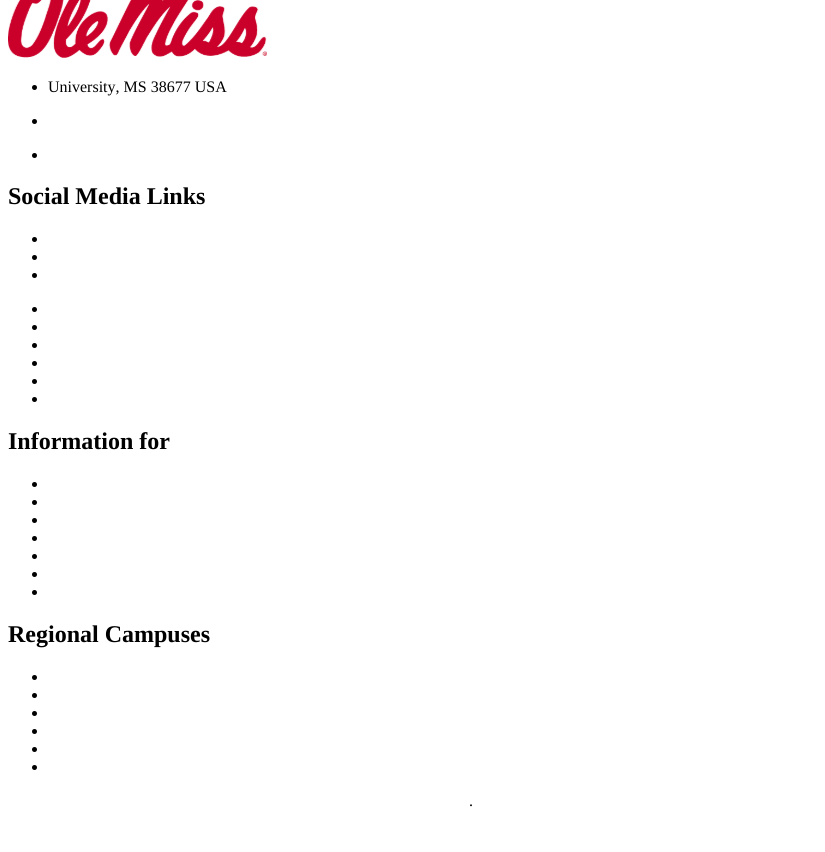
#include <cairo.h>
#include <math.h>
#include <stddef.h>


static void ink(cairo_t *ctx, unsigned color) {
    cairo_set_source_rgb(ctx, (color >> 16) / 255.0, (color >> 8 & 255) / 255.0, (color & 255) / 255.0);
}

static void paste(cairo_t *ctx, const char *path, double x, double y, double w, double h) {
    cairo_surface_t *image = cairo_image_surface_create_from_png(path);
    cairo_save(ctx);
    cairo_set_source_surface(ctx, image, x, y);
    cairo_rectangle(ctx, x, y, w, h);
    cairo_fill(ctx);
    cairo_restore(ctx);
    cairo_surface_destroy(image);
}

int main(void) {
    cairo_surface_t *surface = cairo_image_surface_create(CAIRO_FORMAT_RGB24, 825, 852);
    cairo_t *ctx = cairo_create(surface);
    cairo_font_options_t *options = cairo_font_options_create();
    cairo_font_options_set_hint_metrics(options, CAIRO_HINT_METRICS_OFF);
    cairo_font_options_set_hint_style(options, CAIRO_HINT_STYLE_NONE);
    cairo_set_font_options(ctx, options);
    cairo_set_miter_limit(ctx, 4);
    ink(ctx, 0xFFFFFF);
    cairo_paint(ctx);
    paste(ctx, "media/1.png", 8, 0, 259, 58);
    ink(ctx, 0x000000);
    cairo_arc(ctx, 34.5, 87.5, 2.5, 0, 2 * M_PI);
    cairo_fill(ctx);
    cairo_select_font_face(ctx, "Liberation Serif", CAIRO_FONT_SLANT_NORMAL, CAIRO_FONT_WEIGHT_NORMAL);
    cairo_set_font_size(ctx, 16);
    cairo_move_to(ctx, 48, 92);
    cairo_show_text(ctx, "University, MS 38677 USA");
    cairo_new_path(ctx);
    cairo_arc(ctx, 34.5, 121.5, 2.5, 0, 2 * M_PI);
    cairo_fill(ctx);
    cairo_arc(ctx, 34.5, 155.5, 2.5, 0, 2 * M_PI);
    cairo_fill(ctx);
    cairo_select_font_face(ctx, "Liberation Serif", CAIRO_FONT_SLANT_NORMAL, CAIRO_FONT_WEIGHT_BOLD);
    cairo_set_font_size(ctx, 24);
    cairo_move_to(ctx, 8, 204);
    cairo_show_text(ctx, "Social Media Links");
    cairo_new_path(ctx);
    cairo_arc(ctx, 34.5, 239.5, 2.5, 0, 2 * M_PI);
    cairo_fill(ctx);
    cairo_arc(ctx, 34.5, 257.5, 2.5, 0, 2 * M_PI);
    cairo_fill(ctx);
    cairo_arc(ctx, 34.5, 275.5, 2.5, 0, 2 * M_PI);
    cairo_fill(ctx);
    cairo_arc(ctx, 34.5, 309.5, 2.5, 0, 2 * M_PI);
    cairo_fill(ctx);
    cairo_arc(ctx, 34.5, 327.5, 2.5, 0, 2 * M_PI);
    cairo_fill(ctx);
    cairo_arc(ctx, 34.5, 345.5, 2.5, 0, 2 * M_PI);
    cairo_fill(ctx);
    cairo_arc(ctx, 34.5, 363.5, 2.5, 0, 2 * M_PI);
    cairo_fill(ctx);
    cairo_arc(ctx, 34.5, 381.5, 2.5, 0, 2 * M_PI);
    cairo_fill(ctx);
    cairo_arc(ctx, 34.5, 399.5, 2.5, 0, 2 * M_PI);
    cairo_fill(ctx);
    cairo_move_to(ctx, 8, 449);
    cairo_show_text(ctx, "Information for");
    cairo_new_path(ctx);
    cairo_arc(ctx, 34.5, 484.5, 2.5, 0, 2 * M_PI);
    cairo_fill(ctx);
    cairo_arc(ctx, 34.5, 502.5, 2.5, 0, 2 * M_PI);
    cairo_fill(ctx);
    cairo_arc(ctx, 34.5, 520.5, 2.5, 0, 2 * M_PI);
    cairo_fill(ctx);
    cairo_arc(ctx, 34.5, 538.5, 2.5, 0, 2 * M_PI);
    cairo_fill(ctx);
    cairo_arc(ctx, 34.5, 556.5, 2.5, 0, 2 * M_PI);
    cairo_fill(ctx);
    cairo_arc(ctx, 34.5, 574.5, 2.5, 0, 2 * M_PI);
    cairo_fill(ctx);
    cairo_arc(ctx, 34.5, 592.5, 2.5, 0, 2 * M_PI);
    cairo_fill(ctx);
    cairo_move_to(ctx, 8, 642);
    cairo_show_text(ctx, "Regional Campuses");
    cairo_new_path(ctx);
    cairo_arc(ctx, 34.5, 677.5, 2.5, 0, 2 * M_PI);
    cairo_fill(ctx);
    cairo_arc(ctx, 34.5, 695.5, 2.5, 0, 2 * M_PI);
    cairo_fill(ctx);
    cairo_arc(ctx, 34.5, 713.5, 2.5, 0, 2 * M_PI);
    cairo_fill(ctx);
    cairo_arc(ctx, 34.5, 731.5, 2.5, 0, 2 * M_PI);
    cairo_fill(ctx);
    cairo_arc(ctx, 34.5, 749.5, 2.5, 0, 2 * M_PI);
    cairo_fill(ctx);
    cairo_arc(ctx, 34.5, 767.5, 2.5, 0, 2 * M_PI);
    cairo_fill(ctx);
    cairo_select_font_face(ctx, "Liberation Serif", CAIRO_FONT_SLANT_NORMAL, CAIRO_FONT_WEIGHT_NORMAL);
    cairo_set_font_size(ctx, 16);
    cairo_move_to(ctx, 469, 806);
    cairo_show_text(ctx, ".");
    cairo_surface_write_to_png(surface, "image.png");
    cairo_font_options_destroy(options);
    cairo_destroy(ctx);
    cairo_surface_destroy(surface);
    return 0;
}
